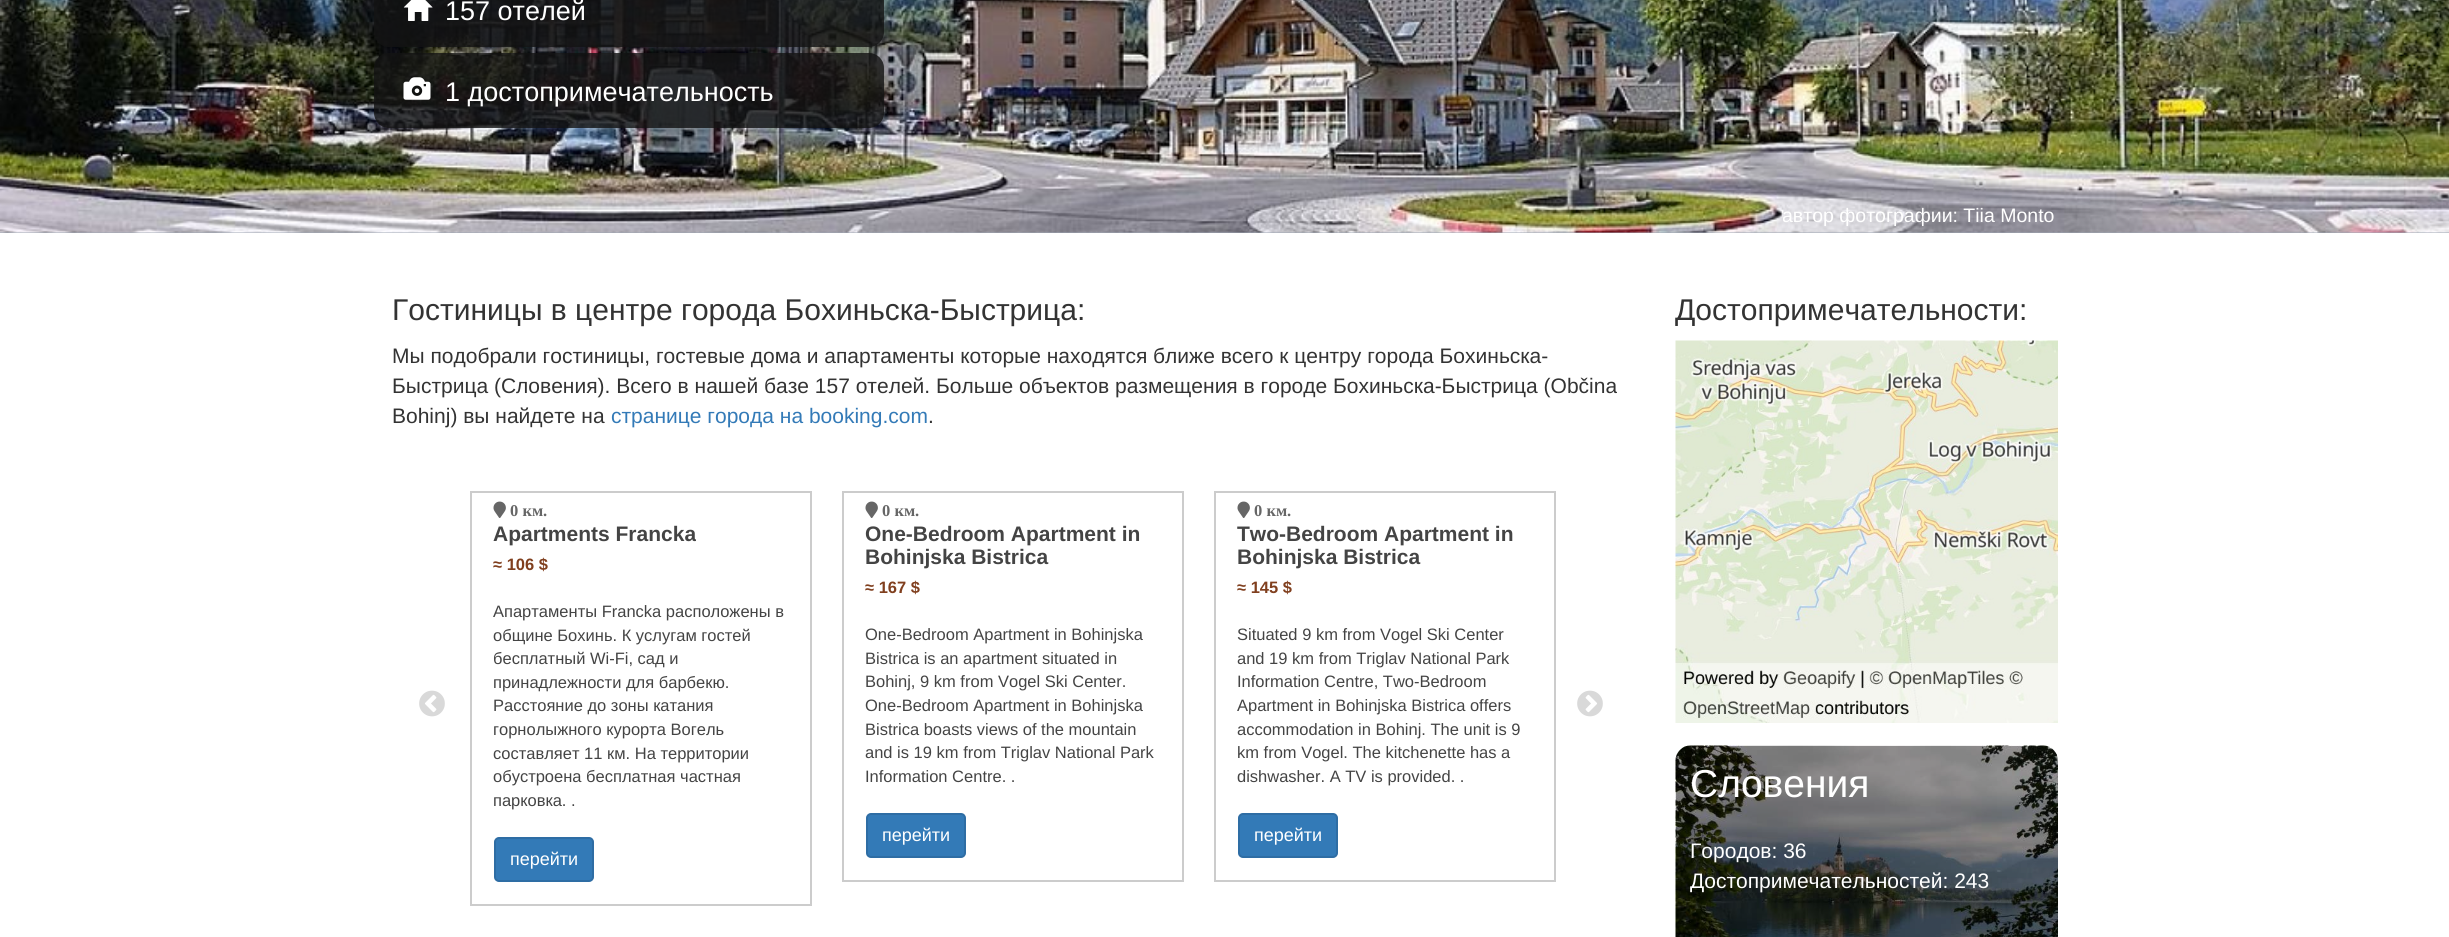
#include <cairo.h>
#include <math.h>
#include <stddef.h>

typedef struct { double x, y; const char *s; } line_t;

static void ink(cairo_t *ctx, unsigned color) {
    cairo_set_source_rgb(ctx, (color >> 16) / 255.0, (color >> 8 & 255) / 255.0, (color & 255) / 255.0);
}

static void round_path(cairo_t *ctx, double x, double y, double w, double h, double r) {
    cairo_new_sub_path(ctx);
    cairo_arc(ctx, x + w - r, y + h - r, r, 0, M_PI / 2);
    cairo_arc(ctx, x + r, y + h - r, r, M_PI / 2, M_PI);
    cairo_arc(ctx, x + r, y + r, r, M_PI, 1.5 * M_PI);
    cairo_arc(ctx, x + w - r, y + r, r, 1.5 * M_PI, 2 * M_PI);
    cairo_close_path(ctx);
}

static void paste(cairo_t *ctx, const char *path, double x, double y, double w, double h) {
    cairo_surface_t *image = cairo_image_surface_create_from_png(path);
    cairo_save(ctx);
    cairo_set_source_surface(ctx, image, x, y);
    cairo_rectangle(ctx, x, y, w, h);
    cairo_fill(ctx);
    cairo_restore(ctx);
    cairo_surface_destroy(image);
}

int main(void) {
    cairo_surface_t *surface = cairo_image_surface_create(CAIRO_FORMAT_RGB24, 2449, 937);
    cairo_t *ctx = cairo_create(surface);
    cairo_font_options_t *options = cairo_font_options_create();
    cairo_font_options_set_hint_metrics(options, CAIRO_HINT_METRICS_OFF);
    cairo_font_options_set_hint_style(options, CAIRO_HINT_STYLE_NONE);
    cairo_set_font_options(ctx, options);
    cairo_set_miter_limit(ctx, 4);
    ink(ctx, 0xFFFFFF);
    cairo_paint(ctx);
    ink(ctx, 0x9FA7B2);
    cairo_rectangle(ctx, 0, 232, 2449, 1);
    cairo_fill(ctx);
    paste(ctx, "media/1.png", 0, 0, 2449, 233);
    cairo_set_source_rgba(ctx, 0.078, 0.078, 0.078, 0.8);
    round_path(ctx, 374, -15, 510, 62, 15);
    cairo_fill(ctx);
    paste(ctx, "media/2.png", 403, 0, 30, 21);
    cairo_select_font_face(ctx, "Liberation Sans", CAIRO_FONT_SLANT_NORMAL, CAIRO_FONT_WEIGHT_NORMAL);
    cairo_set_font_size(ctx, 27);
    ink(ctx, 0xFFFFFF);
    cairo_move_to(ctx, 445, 20);
    cairo_show_text(ctx, "157 отелей");
    cairo_set_source_rgba(ctx, 0.078, 0.078, 0.078, 0.8);
    round_path(ctx, 374, 53, 510, 75, 15);
    cairo_fill(ctx);
    paste(ctx, "media/3.png", 403, 77, 28, 23);
    ink(ctx, 0xFFFFFF);
    cairo_move_to(ctx, 445, 101);
    cairo_show_text(ctx, "1 достопримечательность");
    cairo_set_font_size(ctx, 19.5);
    cairo_move_to(ctx, 1782, 222);
    cairo_show_text(ctx, "автор фотографии: Tiia Monto");
    cairo_set_font_size(ctx, 30);
    ink(ctx, 0x333333);
    cairo_move_to(ctx, 392, 320);
    cairo_show_text(ctx, "Гостиницы в центре города Бохиньска-Быстрица:");
    cairo_set_font_size(ctx, 21);
    {
        static const line_t items[] = {
            {392, 363, "Мы подобрали гостиницы, гостевые дома и апартаменты которые находятся ближе всего к центру города Бохиньска-"},
            {392, 393, "Быстрица (Словения). Всего в нашей базе 157 отелей. Больше объектов размещения в городе Бохиньска-Быстрица (Občina"},
            {392, 423, "Bohinj) вы найдете на"},
        };
        for (size_t i = 0; i < sizeof items / sizeof *items; i++) {
            cairo_move_to(ctx, items[i].x, items[i].y);
            cairo_show_text(ctx, items[i].s);
        }
    }
    ink(ctx, 0x337AB7);
    cairo_move_to(ctx, 611, 423);
    cairo_show_text(ctx, "странице города на booking.com");
    ink(ctx, 0x333333);
    cairo_move_to(ctx, 928, 423);
    cairo_show_text(ctx, ".");
    paste(ctx, "media/4.png", 419, 690, 26, 27);
    cairo_rectangle(ctx, 471, 492, 340, 413);
    ink(ctx, 0xCCCCCC);
    cairo_stroke(ctx);
    paste(ctx, "media/5.png", 493, 501, 13, 17);
    cairo_select_font_face(ctx, "Liberation Serif", CAIRO_FONT_SLANT_NORMAL, CAIRO_FONT_WEIGHT_BOLD);
    cairo_set_font_size(ctx, 16.5);
    ink(ctx, 0x666666);
    cairo_move_to(ctx, 510, 516);
    cairo_show_text(ctx, "0 км.");
    cairo_select_font_face(ctx, "Liberation Sans", CAIRO_FONT_SLANT_NORMAL, CAIRO_FONT_WEIGHT_BOLD);
    cairo_set_font_size(ctx, 21);
    ink(ctx, 0x444444);
    cairo_move_to(ctx, 493, 541);
    cairo_show_text(ctx, "Apartments Francka");
    cairo_set_font_size(ctx, 16.5);
    ink(ctx, 0x803F1E);
    cairo_move_to(ctx, 493, 570);
    cairo_show_text(ctx, "≈ 106 $");
    cairo_select_font_face(ctx, "Liberation Sans", CAIRO_FONT_SLANT_NORMAL, CAIRO_FONT_WEIGHT_NORMAL);
    ink(ctx, 0x444444);
    {
        static const line_t items[] = {
            {493, 617, "Апартаменты Francka расположены в"},
            {493, 641, "общине Бохинь. К услугам гостей"},
            {493, 664, "бесплатный Wi-Fi, сад и"},
            {493, 688, "принадлежности для барбекю."},
            {493, 711, "Расстояние до зоны катания"},
            {493, 735, "горнолыжного курорта Вогель"},
            {493, 759, "составляет 11 км. На территории"},
            {493, 782, "обустроена бесплатная частная"},
            {493, 806, "парковка. ."},
        };
        for (size_t i = 0; i < sizeof items / sizeof *items; i++) {
            cairo_move_to(ctx, items[i].x, items[i].y);
            cairo_show_text(ctx, items[i].s);
        }
    }
    ink(ctx, 0x337AB7);
    round_path(ctx, 495, 838, 98, 43, 4);
    cairo_fill_preserve(ctx);
    ink(ctx, 0x2E6DA4);
    cairo_stroke(ctx);
    cairo_set_font_size(ctx, 18);
    ink(ctx, 0xFFFFFF);
    cairo_move_to(ctx, 510, 865);
    cairo_show_text(ctx, "перейти");
    cairo_rectangle(ctx, 843, 492, 340, 389);
    ink(ctx, 0xCCCCCC);
    cairo_stroke(ctx);
    paste(ctx, "media/5.png", 865, 501, 13, 17);
    cairo_select_font_face(ctx, "Liberation Serif", CAIRO_FONT_SLANT_NORMAL, CAIRO_FONT_WEIGHT_BOLD);
    cairo_set_font_size(ctx, 16.5);
    ink(ctx, 0x666666);
    cairo_move_to(ctx, 882, 516);
    cairo_show_text(ctx, "0 км.");
    cairo_select_font_face(ctx, "Liberation Sans", CAIRO_FONT_SLANT_NORMAL, CAIRO_FONT_WEIGHT_BOLD);
    cairo_set_font_size(ctx, 21);
    ink(ctx, 0x444444);
    cairo_move_to(ctx, 865, 541);
    cairo_show_text(ctx, "One-Bedroom Apartment in");
    cairo_move_to(ctx, 865, 564);
    cairo_show_text(ctx, "Bohinjska Bistrica");
    cairo_set_font_size(ctx, 16.5);
    ink(ctx, 0x803F1E);
    cairo_move_to(ctx, 865, 593);
    cairo_show_text(ctx, "≈ 167 $");
    cairo_select_font_face(ctx, "Liberation Sans", CAIRO_FONT_SLANT_NORMAL, CAIRO_FONT_WEIGHT_NORMAL);
    ink(ctx, 0x444444);
    {
        static const line_t items[] = {
            {865, 640, "One-Bedroom Apartment in Bohinjska"},
            {865, 664, "Bistrica is an apartment situated in"},
            {865, 687, "Bohinj, 9 km from Vogel Ski Center."},
            {865, 711, "One-Bedroom Apartment in Bohinjska"},
            {865, 735, "Bistrica boasts views of the mountain"},
            {865, 758, "and is 19 km from Triglav National Park"},
            {865, 782, "Information Centre. ."},
        };
        for (size_t i = 0; i < sizeof items / sizeof *items; i++) {
            cairo_move_to(ctx, items[i].x, items[i].y);
            cairo_show_text(ctx, items[i].s);
        }
    }
    ink(ctx, 0x337AB7);
    round_path(ctx, 867, 814, 98, 43, 4);
    cairo_fill_preserve(ctx);
    ink(ctx, 0x2E6DA4);
    cairo_stroke(ctx);
    cairo_set_font_size(ctx, 18);
    ink(ctx, 0xFFFFFF);
    cairo_move_to(ctx, 882, 841);
    cairo_show_text(ctx, "перейти");
    cairo_rectangle(ctx, 1215, 492, 340, 389);
    ink(ctx, 0xCCCCCC);
    cairo_stroke(ctx);
    paste(ctx, "media/5.png", 1237, 501, 13, 17);
    cairo_select_font_face(ctx, "Liberation Serif", CAIRO_FONT_SLANT_NORMAL, CAIRO_FONT_WEIGHT_BOLD);
    cairo_set_font_size(ctx, 16.5);
    ink(ctx, 0x666666);
    cairo_move_to(ctx, 1254, 516);
    cairo_show_text(ctx, "0 км.");
    cairo_select_font_face(ctx, "Liberation Sans", CAIRO_FONT_SLANT_NORMAL, CAIRO_FONT_WEIGHT_BOLD);
    cairo_set_font_size(ctx, 21);
    ink(ctx, 0x444444);
    cairo_move_to(ctx, 1237, 541);
    cairo_show_text(ctx, "Two-Bedroom Apartment in");
    cairo_move_to(ctx, 1237, 564);
    cairo_show_text(ctx, "Bohinjska Bistrica");
    cairo_set_font_size(ctx, 16.5);
    ink(ctx, 0x803F1E);
    cairo_move_to(ctx, 1237, 593);
    cairo_show_text(ctx, "≈ 145 $");
    cairo_select_font_face(ctx, "Liberation Sans", CAIRO_FONT_SLANT_NORMAL, CAIRO_FONT_WEIGHT_NORMAL);
    ink(ctx, 0x444444);
    {
        static const line_t items[] = {
            {1237, 640, "Situated 9 km from Vogel Ski Center"},
            {1237, 664, "and 19 km from Triglav National Park"},
            {1237, 687, "Information Centre, Two-Bedroom"},
            {1237, 711, "Apartment in Bohinjska Bistrica offers"},
            {1237, 735, "accommodation in Bohinj. The unit is 9"},
            {1237, 758, "km from Vogel. The kitchenette has a"},
            {1237, 782, "dishwasher. A TV is provided. ."},
        };
        for (size_t i = 0; i < sizeof items / sizeof *items; i++) {
            cairo_move_to(ctx, items[i].x, items[i].y);
            cairo_show_text(ctx, items[i].s);
        }
    }
    ink(ctx, 0x337AB7);
    round_path(ctx, 1239, 814, 98, 43, 4);
    cairo_fill_preserve(ctx);
    ink(ctx, 0x2E6DA4);
    cairo_stroke(ctx);
    cairo_set_font_size(ctx, 18);
    ink(ctx, 0xFFFFFF);
    cairo_move_to(ctx, 1254, 841);
    cairo_show_text(ctx, "перейти");
    paste(ctx, "media/6.png", 1577, 690, 26, 27);
    cairo_set_font_size(ctx, 30);
    ink(ctx, 0x333333);
    cairo_move_to(ctx, 1675, 320);
    cairo_show_text(ctx, "Достопримечательности:");
    paste(ctx, "media/7.png", 1675, 340, 383, 383);
    paste(ctx, "media/8.png", 1675, 745, 383, 192);
    cairo_set_source_rgba(ctx, 0, 0, 0, 0.4);
    round_path(ctx, 1676, 746, 382, 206, 15);
    cairo_fill(ctx);
    cairo_set_font_size(ctx, 39);
    ink(ctx, 0xFFFFFF);
    cairo_move_to(ctx, 1690, 797);
    cairo_show_text(ctx, "Словения");
    cairo_set_font_size(ctx, 21);
    cairo_move_to(ctx, 1690, 858);
    cairo_show_text(ctx, "Городов: 36");
    cairo_move_to(ctx, 1690, 888);
    cairo_show_text(ctx, "Достопримечательностей: 243");
    cairo_surface_write_to_png(surface, "image.png");
    cairo_font_options_destroy(options);
    cairo_destroy(ctx);
    cairo_surface_destroy(surface);
    return 0;
}
